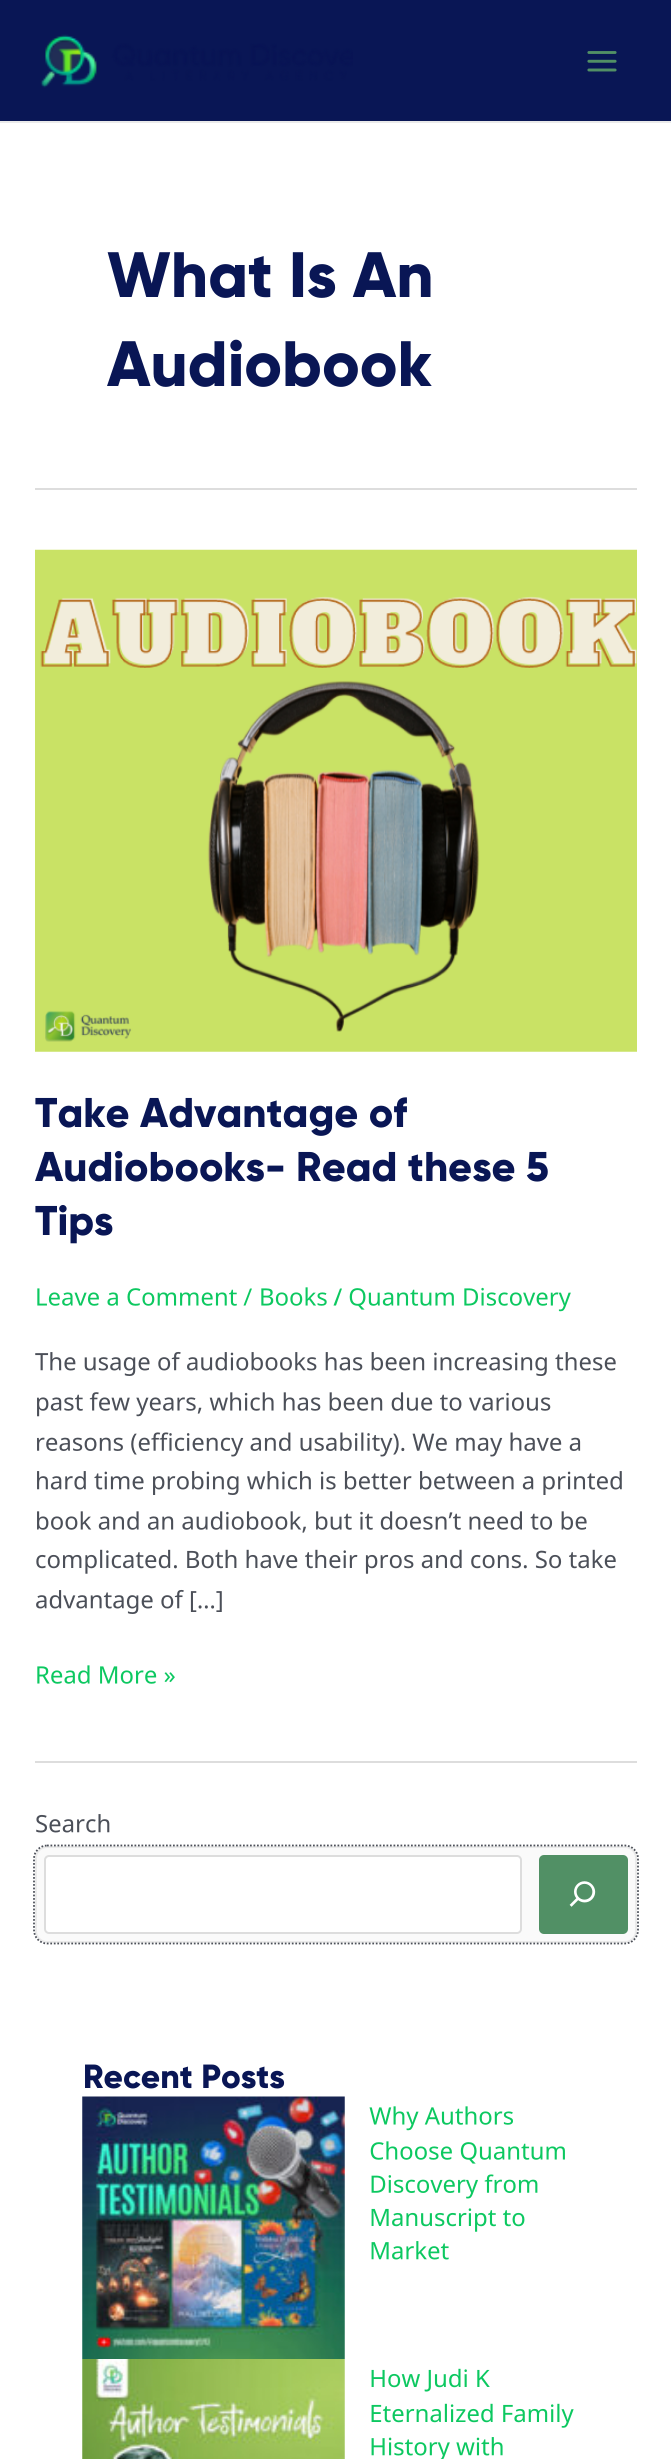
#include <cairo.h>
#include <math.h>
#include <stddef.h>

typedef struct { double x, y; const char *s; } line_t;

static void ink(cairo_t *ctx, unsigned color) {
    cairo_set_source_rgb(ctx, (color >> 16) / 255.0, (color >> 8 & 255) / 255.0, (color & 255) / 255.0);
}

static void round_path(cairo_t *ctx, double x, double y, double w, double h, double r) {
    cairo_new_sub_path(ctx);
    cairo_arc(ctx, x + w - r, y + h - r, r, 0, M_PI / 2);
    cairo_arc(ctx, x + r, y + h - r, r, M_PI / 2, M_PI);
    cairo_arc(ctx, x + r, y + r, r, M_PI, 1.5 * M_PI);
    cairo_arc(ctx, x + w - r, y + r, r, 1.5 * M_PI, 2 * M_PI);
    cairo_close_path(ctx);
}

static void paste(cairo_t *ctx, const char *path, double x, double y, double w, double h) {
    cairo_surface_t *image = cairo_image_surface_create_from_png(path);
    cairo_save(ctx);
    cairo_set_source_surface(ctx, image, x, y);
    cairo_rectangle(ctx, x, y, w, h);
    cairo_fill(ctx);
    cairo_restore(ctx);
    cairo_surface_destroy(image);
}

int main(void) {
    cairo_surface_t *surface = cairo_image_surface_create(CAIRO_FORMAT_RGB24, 671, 2459);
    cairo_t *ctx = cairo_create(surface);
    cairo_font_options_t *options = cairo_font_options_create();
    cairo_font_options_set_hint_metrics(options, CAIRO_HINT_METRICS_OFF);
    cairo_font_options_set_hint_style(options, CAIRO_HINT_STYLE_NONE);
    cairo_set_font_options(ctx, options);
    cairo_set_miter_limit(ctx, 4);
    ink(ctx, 0xFFFFFF);
    cairo_paint(ctx);
    ink(ctx, 0x091655);
    cairo_rectangle(ctx, 0, 0, 671, 121);
    cairo_fill(ctx);
    ink(ctx, 0xEAEAEA);
    cairo_rectangle(ctx, 0, 121, 671, 2);
    cairo_fill(ctx);
    paste(ctx, "media/1.png", 40, 34, 313, 54);
    paste(ctx, "media/2.png", 587, 51, 30, 21);
    ink(ctx, 0xDDDDDD);
    cairo_rectangle(ctx, 35, 488, 602, 2);
    cairo_fill(ctx);
    cairo_select_font_face(ctx, "Gilroy ExtraBold", CAIRO_FONT_SLANT_NORMAL, CAIRO_FONT_WEIGHT_NORMAL);
    cairo_set_font_size(ctx, 64);
    ink(ctx, 0x091655);
    cairo_move_to(ctx, 107, 297);
    cairo_show_text(ctx, "What Is An");
    cairo_move_to(ctx, 107, 386);
    cairo_show_text(ctx, "Audiobook");
    ink(ctx, 0xDDDDDD);
    cairo_rectangle(ctx, 35, 1761, 602, 2);
    cairo_fill(ctx);
    paste(ctx, "media/3.png", 35, 549, 602, 503);
    cairo_set_font_size(ctx, 41.5);
    ink(ctx, 0x091655);
    {
        static const line_t items[] = {
            {35, 1127, "Take Advantage of"},
            {35, 1181, "Audiobooks- Read these 5"},
            {35, 1235, "Tips"},
        };
        for (size_t i = 0; i < sizeof items / sizeof *items; i++) {
            cairo_move_to(ctx, items[i].x, items[i].y);
            cairo_show_text(ctx, items[i].s);
        }
    }
    paste(ctx, "media/4.png", 37, 1288, 200, 18);
    ink(ctx, 0x0CC860);
    cairo_new_path(ctx);
    cairo_move_to(ctx, 252, 1288.5);
    cairo_line_to(ctx, 245.5, 1305.5);
    cairo_line_to(ctx, 243.5, 1305.5);
    cairo_line_to(ctx, 250, 1288.5);
    cairo_close_path(ctx);
    cairo_fill(ctx);
    paste(ctx, "media/5.png", 261, 1287, 66, 19);
    cairo_new_path(ctx);
    cairo_move_to(ctx, 342, 1288.5);
    cairo_line_to(ctx, 336, 1305.5);
    cairo_line_to(ctx, 333.5, 1305.5);
    cairo_line_to(ctx, 340, 1288.5);
    cairo_close_path(ctx);
    cairo_fill(ctx);
    paste(ctx, "media/6.png", 349, 1287, 222, 25);
    paste(ctx, "media/7.png", 35, 1351, 581, 25);
    paste(ctx, "media/8.png", 37, 1392, 514, 25);
    paste(ctx, "media/9.png", 37, 1432, 544, 25);
    paste(ctx, "media/10.png", 37, 1471, 585, 24);
    paste(ctx, "media/11.png", 37, 1511, 550, 22);
    paste(ctx, "media/12.png", 36, 1549, 580, 25);
    paste(ctx, "media/13.png", 36, 1589, 186, 25);
    paste(ctx, "media/14.png", 37, 1665, 138, 19);
    paste(ctx, "media/15.png", 36, 1814, 74, 19);
    ink(ctx, 0xFAFAFA);
    round_path(ctx, 36, 1847, 600, 95, 11);
    cairo_fill_preserve(ctx);
    ink(ctx, 0xEAEAEA);
    cairo_stroke(ctx);
    ink(ctx, 0xFFFFFF);
    round_path(ctx, 45, 1856, 476, 77, 4);
    cairo_fill_preserve(ctx);
    ink(ctx, 0xDDDDDD);
    cairo_stroke(ctx);
    ink(ctx, 0x519065);
    round_path(ctx, 539, 1855, 89, 79, 5);
    cairo_fill(ctx);
    cairo_new_path(ctx);
    cairo_move_to(ctx, 47, 1845.5);
    cairo_line_to(ctx, 625, 1845.5);
    cairo_curve_to(ctx, 632, 1845.5, 638, 1851.5, 638, 1858.5);
    cairo_line_to(ctx, 638, 1930);
    cairo_curve_to(ctx, 638, 1937.5, 632, 1943.5, 625, 1943.5);
    cairo_line_to(ctx, 47, 1943.5);
    cairo_curve_to(ctx, 40, 1943.5, 34, 1937.5, 34, 1930);
    cairo_line_to(ctx, 34, 1858.5);
    cairo_curve_to(ctx, 34, 1851.5, 40, 1845.5, 47, 1845.5);
    cairo_close_path(ctx);
    ink(ctx, 0x4B4F58);
    cairo_set_line_width(ctx, 1.8);
    cairo_set_dash(ctx, (double[]){1.75, 1.75}, 2, 0);
    cairo_stroke(ctx);
    paste(ctx, "media/16.png", 569, 1881, 27, 26);
    cairo_set_font_size(ctx, 33.5);
    ink(ctx, 0x091655);
    cairo_move_to(ctx, 83, 2088);
    cairo_show_text(ctx, "Recent Posts");
    paste(ctx, "media/17.png", 82, 2096, 263, 263);
    paste(ctx, "media/18.png", 369, 2106, 144, 25);
    paste(ctx, "media/19.png", 370, 2141, 195, 23);
    paste(ctx, "media/20.png", 371, 2174, 167, 25);
    paste(ctx, "media/21.png", 371, 2208, 154, 24);
    paste(ctx, "media/22.png", 371, 2241, 78, 19);
    paste(ctx, "media/23.png", 82, 2359, 263, 100);
    paste(ctx, "media/24.png", 371, 2368, 119, 24);
    paste(ctx, "media/25.png", 371, 2403, 203, 25);
    paste(ctx, "media/26.png", 371, 2437, 132, 22);
    cairo_surface_write_to_png(surface, "image.png");
    cairo_font_options_destroy(options);
    cairo_destroy(ctx);
    cairo_surface_destroy(surface);
    return 0;
}
